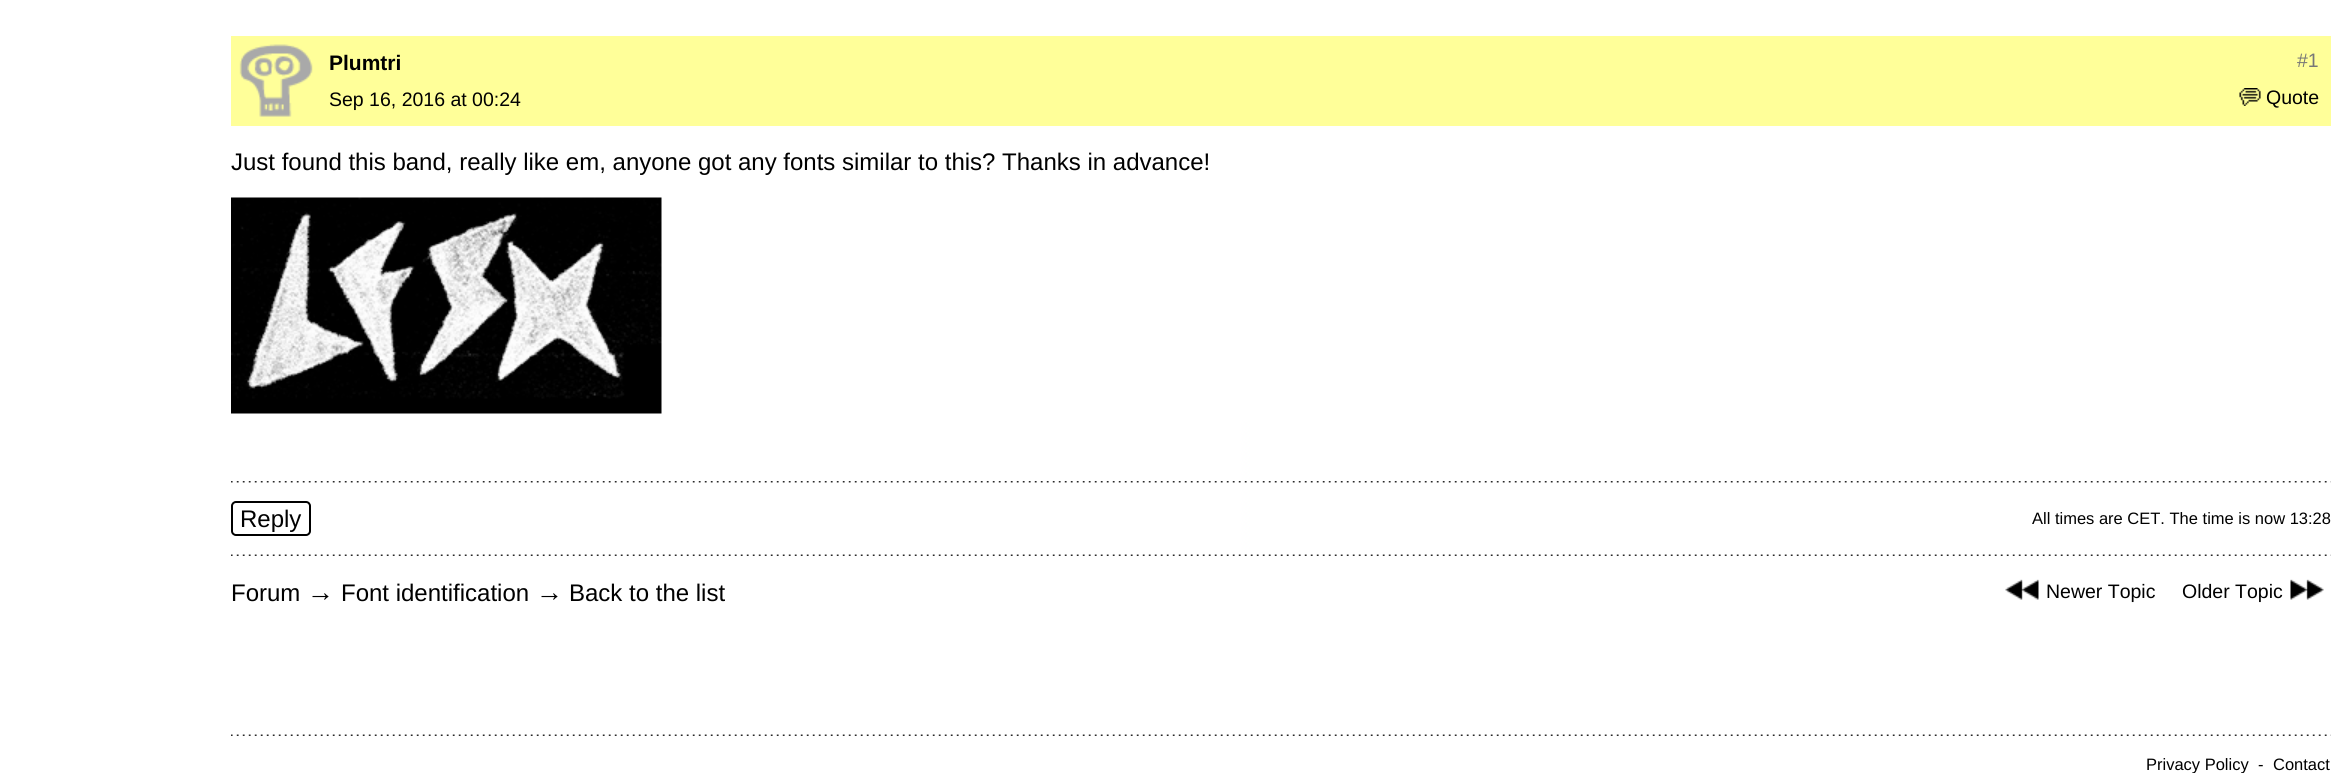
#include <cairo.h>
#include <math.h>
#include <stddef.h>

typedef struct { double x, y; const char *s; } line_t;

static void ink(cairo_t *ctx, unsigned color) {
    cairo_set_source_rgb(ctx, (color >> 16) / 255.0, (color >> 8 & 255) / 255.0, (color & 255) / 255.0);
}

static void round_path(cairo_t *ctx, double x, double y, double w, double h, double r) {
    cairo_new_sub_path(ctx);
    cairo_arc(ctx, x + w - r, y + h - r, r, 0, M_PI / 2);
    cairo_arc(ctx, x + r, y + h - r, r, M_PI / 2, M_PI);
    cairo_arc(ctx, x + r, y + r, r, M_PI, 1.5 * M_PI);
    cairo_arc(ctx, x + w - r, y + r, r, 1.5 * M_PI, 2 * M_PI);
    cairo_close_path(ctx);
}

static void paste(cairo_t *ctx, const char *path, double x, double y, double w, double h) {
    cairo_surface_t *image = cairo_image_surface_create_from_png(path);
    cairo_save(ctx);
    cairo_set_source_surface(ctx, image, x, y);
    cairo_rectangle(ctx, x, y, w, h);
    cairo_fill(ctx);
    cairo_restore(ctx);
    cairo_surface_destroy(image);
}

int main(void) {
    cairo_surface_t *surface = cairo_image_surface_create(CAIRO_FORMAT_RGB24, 2351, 773);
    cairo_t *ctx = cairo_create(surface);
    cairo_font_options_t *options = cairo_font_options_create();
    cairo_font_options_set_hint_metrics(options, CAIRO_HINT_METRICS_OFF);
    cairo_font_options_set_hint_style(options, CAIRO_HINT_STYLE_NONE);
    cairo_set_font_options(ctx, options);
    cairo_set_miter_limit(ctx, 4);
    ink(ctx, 0xFFFFFF);
    cairo_paint(ctx);
    ink(ctx, 0xFFFF99);
    cairo_rectangle(ctx, 231, 36, 2100, 90);
    cairo_fill(ctx);
    paste(ctx, "media/1.png", 239, 44, 74, 73);
    cairo_select_font_face(ctx, "Liberation Sans", CAIRO_FONT_SLANT_NORMAL, CAIRO_FONT_WEIGHT_BOLD);
    cairo_set_font_size(ctx, 21);
    ink(ctx, 0x000000);
    cairo_move_to(ctx, 329, 70);
    cairo_show_text(ctx, "Plumtri");
    cairo_select_font_face(ctx, "Liberation Sans", CAIRO_FONT_SLANT_NORMAL, CAIRO_FONT_WEIGHT_NORMAL);
    cairo_set_font_size(ctx, 19.5);
    ink(ctx, 0x777777);
    cairo_move_to(ctx, 2297, 67);
    cairo_show_text(ctx, "#1");
    ink(ctx, 0x000000);
    cairo_move_to(ctx, 329, 106);
    cairo_show_text(ctx, "Sep 16, 2016 at 00:24");
    paste(ctx, "media/2.png", 2239, 88, 22, 18);
    cairo_move_to(ctx, 2266, 104);
    cairo_show_text(ctx, "Quote");
    cairo_set_font_size(ctx, 24);
    cairo_move_to(ctx, 231, 170);
    cairo_show_text(ctx, "Just found this band, really like em, anyone got any fonts similar to this? Thanks in advance!");
    paste(ctx, "media/3.png", 231, 197, 431, 217);
    paste(ctx, "media/4.png", 231, 481, 2100, 2);
    round_path(ctx, 232, 502, 78, 33, 4);
    cairo_stroke(ctx);
    cairo_move_to(ctx, 240, 527);
    cairo_show_text(ctx, "Reply");
    cairo_set_font_size(ctx, 16.5);
    cairo_move_to(ctx, 2032, 524);
    cairo_show_text(ctx, "All times are CET. The time is now 13:28");
    paste(ctx, "media/5.png", 231, 554, 2100, 2);
    cairo_set_font_size(ctx, 24);
    cairo_move_to(ctx, 231, 601);
    cairo_show_text(ctx, "Forum");
    cairo_set_font_size(ctx, 27);
    cairo_move_to(ctx, 307, 601);
    cairo_show_text(ctx, "→");
    cairo_set_font_size(ctx, 24);
    cairo_move_to(ctx, 341, 601);
    cairo_show_text(ctx, "Font identification");
    cairo_set_font_size(ctx, 27);
    cairo_move_to(ctx, 536, 601);
    cairo_show_text(ctx, "→");
    cairo_set_font_size(ctx, 24);
    cairo_move_to(ctx, 569, 601);
    cairo_show_text(ctx, "Back to the list");
    paste(ctx, "media/6.png", 2005, 579, 34, 21);
    cairo_set_font_size(ctx, 19.5);
    cairo_move_to(ctx, 2046, 598);
    cairo_show_text(ctx, "Newer Topic");
    cairo_move_to(ctx, 2182, 598);
    cairo_show_text(ctx, "Older Topic");
    paste(ctx, "media/7.png", 2290, 579, 34, 21);
    paste(ctx, "media/5.png", 231, 734, 2100, 2);
    cairo_set_font_size(ctx, 16.5);
    {
        static const line_t items[] = {
            {2146, 770, "Privacy Policy"},
            {2258, 770, "-"},
            {2273, 770, "Contact"},
        };
        for (size_t i = 0; i < sizeof items / sizeof *items; i++) {
            cairo_move_to(ctx, items[i].x, items[i].y);
            cairo_show_text(ctx, items[i].s);
        }
    }
    cairo_surface_write_to_png(surface, "image.png");
    cairo_font_options_destroy(options);
    cairo_destroy(ctx);
    cairo_surface_destroy(surface);
    return 0;
}
